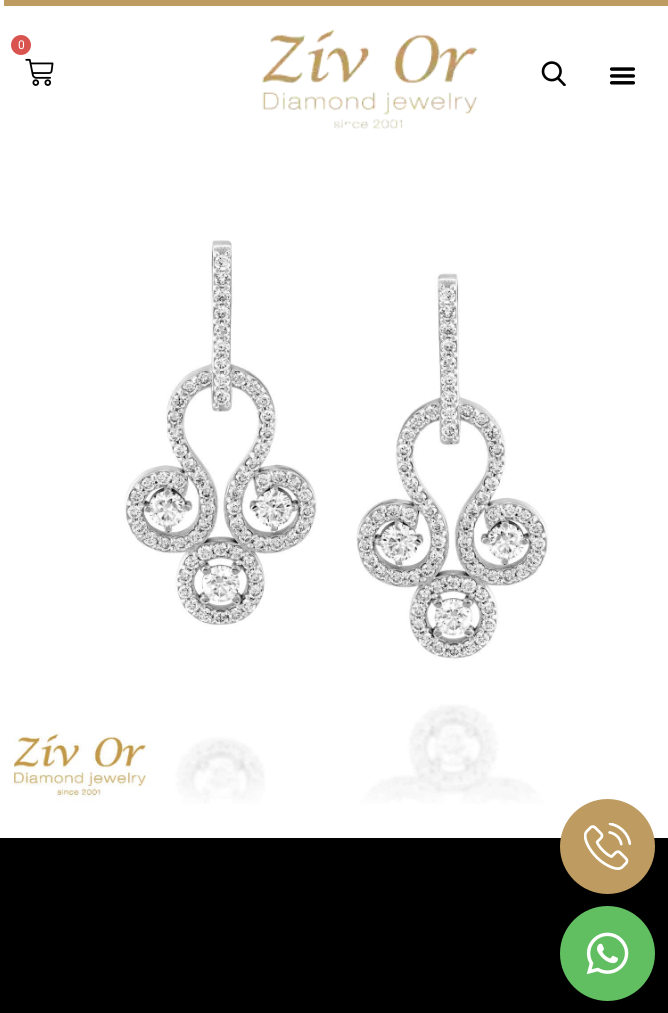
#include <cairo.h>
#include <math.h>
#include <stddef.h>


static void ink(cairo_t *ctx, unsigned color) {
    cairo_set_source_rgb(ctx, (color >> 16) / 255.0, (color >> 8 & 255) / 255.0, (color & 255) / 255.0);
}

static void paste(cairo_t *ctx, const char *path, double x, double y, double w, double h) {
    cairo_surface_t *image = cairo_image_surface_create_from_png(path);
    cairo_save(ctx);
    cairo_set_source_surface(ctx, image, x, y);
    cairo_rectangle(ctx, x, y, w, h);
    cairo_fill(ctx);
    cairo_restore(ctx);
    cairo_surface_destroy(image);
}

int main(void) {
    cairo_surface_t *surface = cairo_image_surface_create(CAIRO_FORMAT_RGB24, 668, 1013);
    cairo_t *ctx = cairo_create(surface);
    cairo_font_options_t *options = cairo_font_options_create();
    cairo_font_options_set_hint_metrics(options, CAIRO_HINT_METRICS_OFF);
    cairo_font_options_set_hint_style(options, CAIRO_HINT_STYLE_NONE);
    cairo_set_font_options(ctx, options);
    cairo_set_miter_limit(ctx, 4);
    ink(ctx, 0xFFFFFF);
    cairo_paint(ctx);
    ink(ctx, 0xBE9C61);
    cairo_rectangle(ctx, 4, 0, 664, 6);
    cairo_fill(ctx);
    ink(ctx, 0xD9534F);
    cairo_arc(ctx, 21, 45, 10, 0, 2 * M_PI);
    cairo_fill(ctx);
    cairo_select_font_face(ctx, "Roboto", CAIRO_FONT_SLANT_NORMAL, CAIRO_FONT_WEIGHT_NORMAL);
    cairo_set_font_size(ctx, 12);
    ink(ctx, 0xFFFFFF);
    cairo_move_to(ctx, 18, 49);
    cairo_show_text(ctx, "0");
    paste(ctx, "media/1.png", 25, 58, 29, 28);
    paste(ctx, "media/2.png", 262, 29, 216, 100);
    paste(ctx, "media/3.png", 541, 61, 25, 25);
    paste(ctx, "media/4.png", 609, 67, 27, 18);
    paste(ctx, "media/5.png", 13, 240, 536, 564);
    ink(ctx, 0x000000);
    cairo_rectangle(ctx, 0, 838, 668, 175);
    cairo_fill(ctx);
    ink(ctx, 0xBE9C61);
    cairo_arc(ctx, 607.5, 846.5, 47.5, 0, 2 * M_PI);
    cairo_fill(ctx);
    paste(ctx, "media/6.png", 584, 823, 47, 47);
    ink(ctx, 0x61BE61);
    cairo_arc(ctx, 607.5, 953.5, 47.5, 0, 2 * M_PI);
    cairo_fill(ctx);
    paste(ctx, "media/7.png", 586, 932, 43, 43);
    cairo_surface_write_to_png(surface, "image.png");
    cairo_font_options_destroy(options);
    cairo_destroy(ctx);
    cairo_surface_destroy(surface);
    return 0;
}
